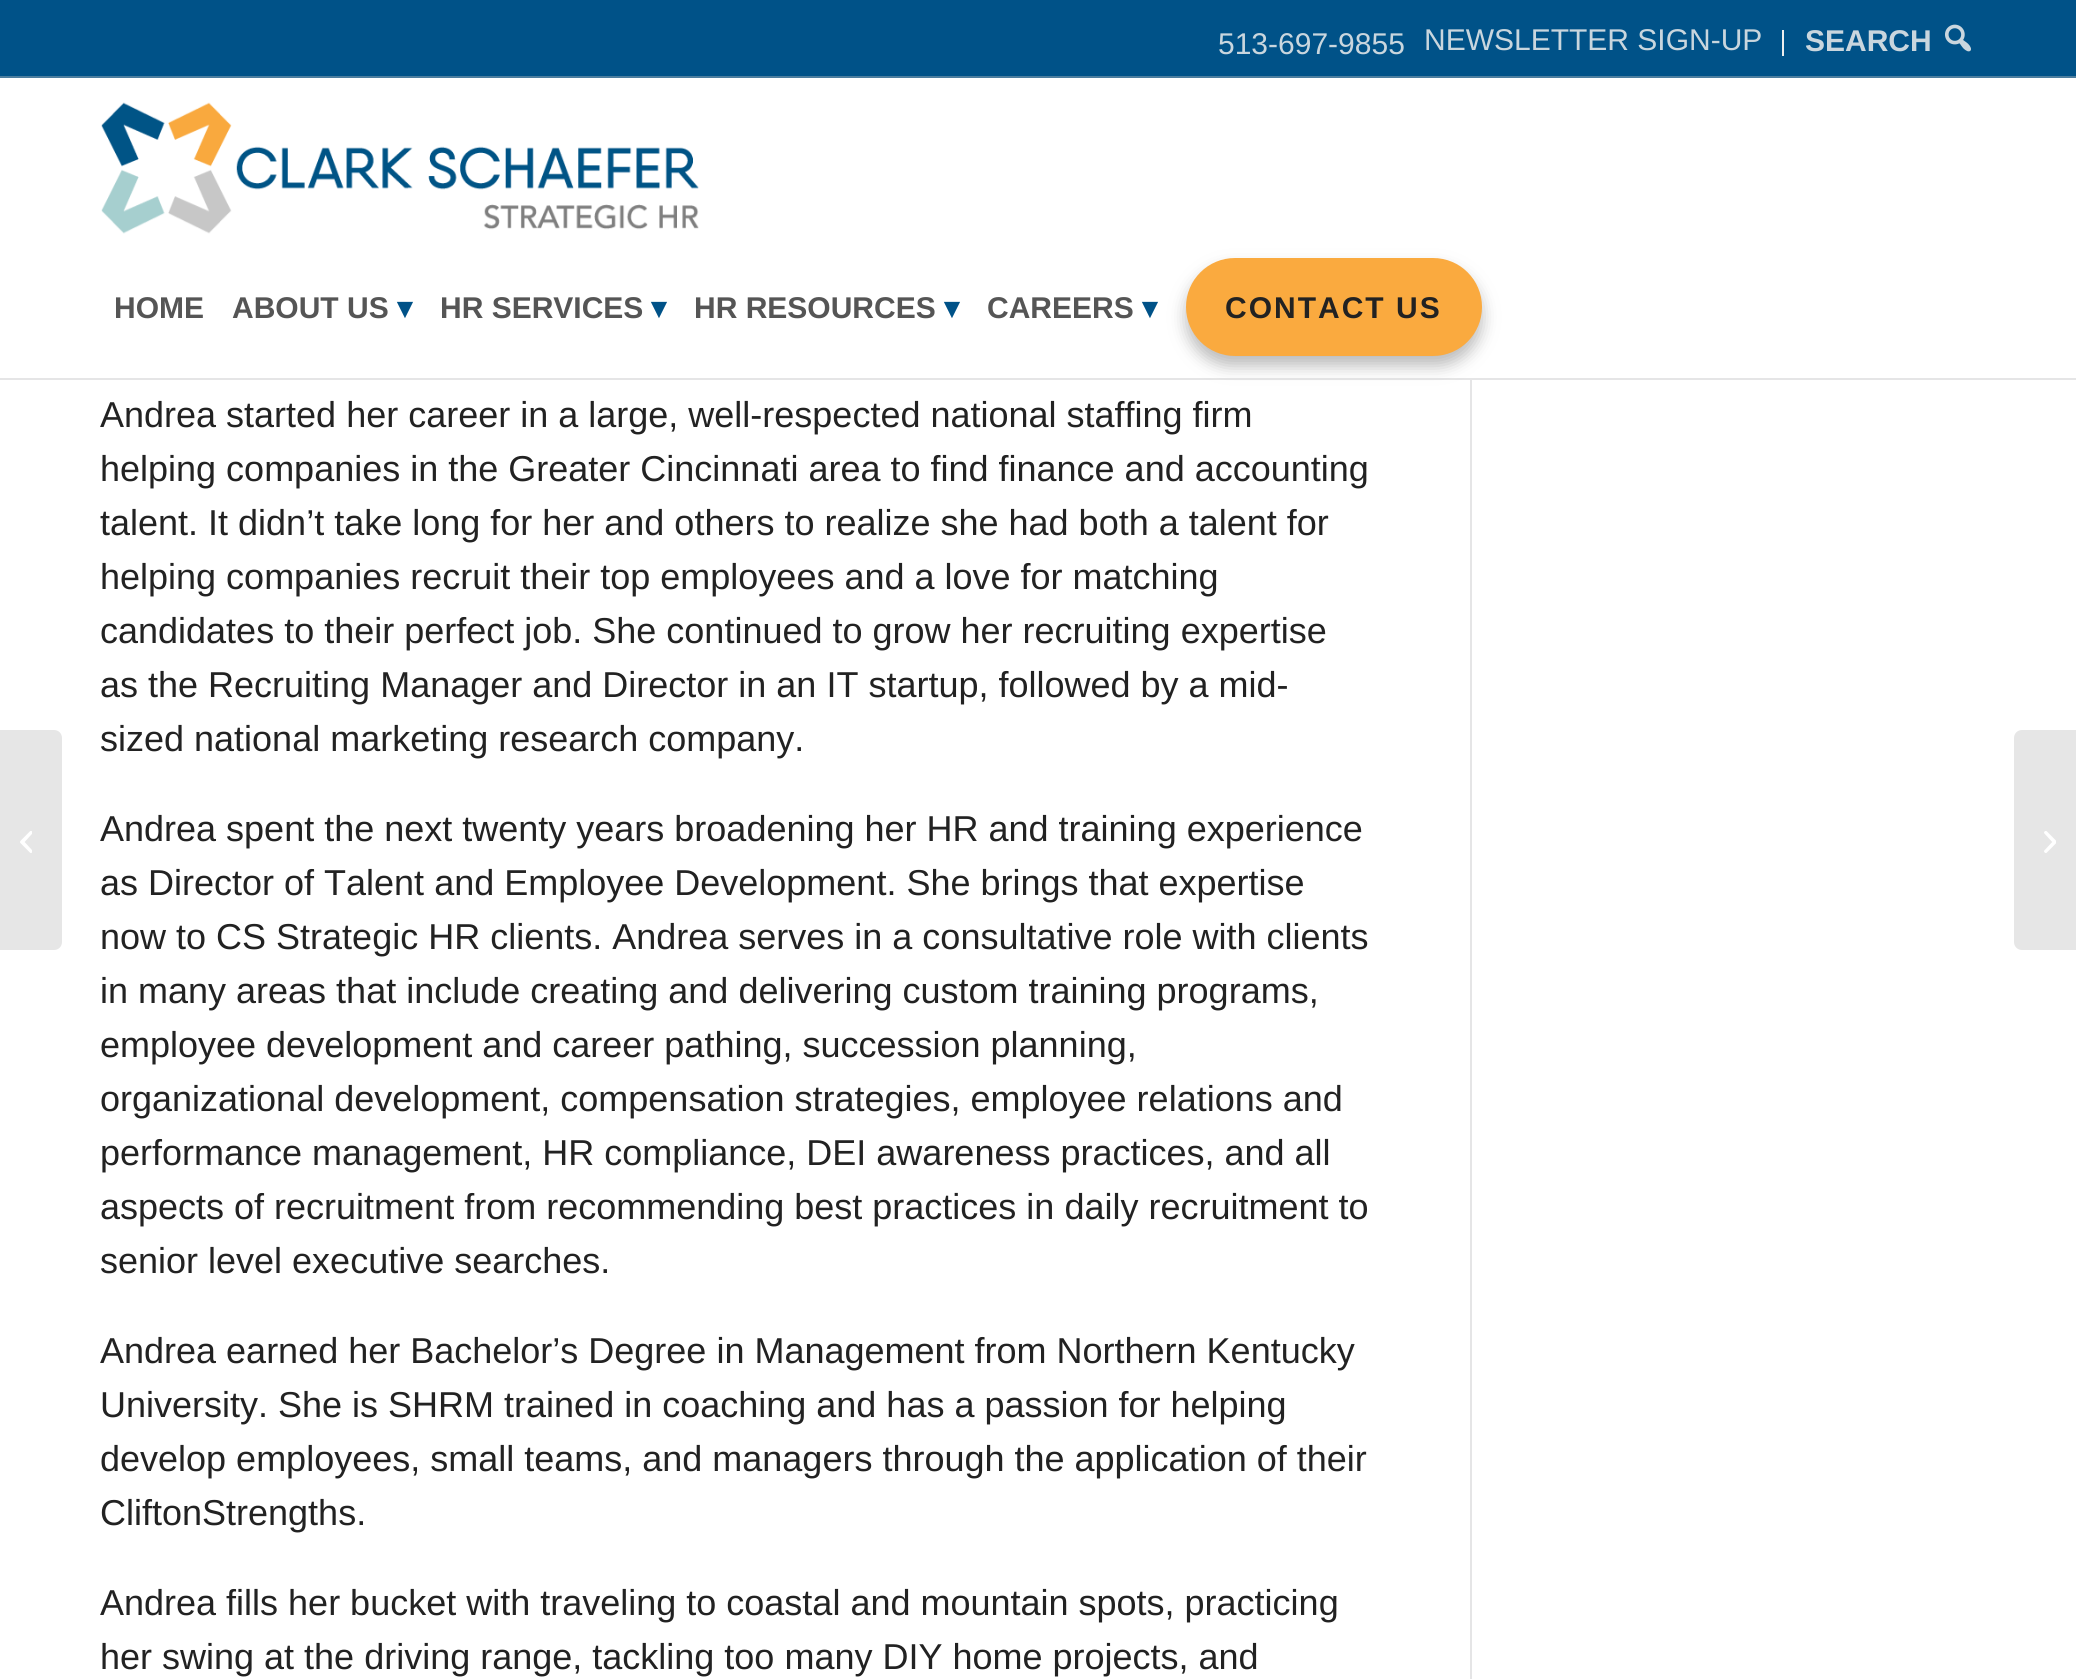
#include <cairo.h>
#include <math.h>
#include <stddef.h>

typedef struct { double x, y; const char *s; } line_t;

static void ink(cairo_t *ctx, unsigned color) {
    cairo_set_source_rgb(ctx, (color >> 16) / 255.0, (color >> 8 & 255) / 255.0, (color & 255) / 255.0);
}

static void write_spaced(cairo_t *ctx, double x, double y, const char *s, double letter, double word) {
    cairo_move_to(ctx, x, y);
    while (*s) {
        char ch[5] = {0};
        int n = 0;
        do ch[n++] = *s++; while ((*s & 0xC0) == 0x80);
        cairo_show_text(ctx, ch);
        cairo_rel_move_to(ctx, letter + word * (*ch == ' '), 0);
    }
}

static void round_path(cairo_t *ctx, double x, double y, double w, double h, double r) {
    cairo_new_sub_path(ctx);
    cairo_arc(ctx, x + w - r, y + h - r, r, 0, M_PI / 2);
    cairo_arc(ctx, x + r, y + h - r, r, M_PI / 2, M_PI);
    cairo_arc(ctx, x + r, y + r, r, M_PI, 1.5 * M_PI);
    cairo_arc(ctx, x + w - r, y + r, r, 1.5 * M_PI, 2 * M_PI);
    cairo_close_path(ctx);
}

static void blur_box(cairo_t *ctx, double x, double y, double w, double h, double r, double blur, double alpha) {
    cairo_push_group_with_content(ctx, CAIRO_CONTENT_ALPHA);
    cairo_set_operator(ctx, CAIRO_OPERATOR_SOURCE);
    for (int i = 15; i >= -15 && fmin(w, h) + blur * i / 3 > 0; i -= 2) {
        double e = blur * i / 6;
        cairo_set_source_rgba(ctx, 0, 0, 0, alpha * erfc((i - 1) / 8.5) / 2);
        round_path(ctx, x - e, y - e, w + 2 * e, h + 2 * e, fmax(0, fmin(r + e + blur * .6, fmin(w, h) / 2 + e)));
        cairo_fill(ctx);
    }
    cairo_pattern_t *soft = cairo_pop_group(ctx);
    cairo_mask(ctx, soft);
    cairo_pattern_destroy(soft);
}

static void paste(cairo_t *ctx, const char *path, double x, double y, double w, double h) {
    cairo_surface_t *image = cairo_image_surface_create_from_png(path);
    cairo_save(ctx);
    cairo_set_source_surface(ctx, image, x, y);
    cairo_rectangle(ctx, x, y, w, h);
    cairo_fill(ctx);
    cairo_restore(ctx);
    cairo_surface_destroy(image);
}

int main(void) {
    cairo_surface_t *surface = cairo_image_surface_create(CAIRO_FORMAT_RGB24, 2076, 1679);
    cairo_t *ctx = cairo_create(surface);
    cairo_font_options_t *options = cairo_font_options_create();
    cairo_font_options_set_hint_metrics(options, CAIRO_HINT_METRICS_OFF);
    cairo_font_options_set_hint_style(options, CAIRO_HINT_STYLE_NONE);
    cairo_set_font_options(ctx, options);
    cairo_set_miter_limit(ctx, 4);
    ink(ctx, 0xFFFFFF);
    cairo_paint(ctx);
    ink(ctx, 0x005288);
    cairo_rectangle(ctx, 0, 0, 2076, 76);
    cairo_fill(ctx);
    ink(ctx, 0x4C7E9F);
    cairo_rectangle(ctx, 0, 76, 2076, 2);
    cairo_fill(ctx);
    cairo_select_font_face(ctx, "Liberation Sans", CAIRO_FONT_SLANT_NORMAL, CAIRO_FONT_WEIGHT_NORMAL);
    cairo_set_font_size(ctx, 30);
    ink(ctx, 0xC9D6DE);
    cairo_move_to(ctx, 1218, 54);
    cairo_show_text(ctx, "513-697-9855");
    ink(ctx, 0xEEEEEE);
    cairo_rectangle(ctx, 1782, 30, 2, 26);
    cairo_fill(ctx);
    ink(ctx, 0xC9D6DE);
    cairo_move_to(ctx, 1424, 50);
    cairo_show_text(ctx, "NEWSLETTER SIGN-UP");
    cairo_select_font_face(ctx, "Liberation Sans", CAIRO_FONT_SLANT_NORMAL, CAIRO_FONT_WEIGHT_BOLD);
    cairo_move_to(ctx, 1805, 51);
    cairo_show_text(ctx, "SEARCH");
    paste(ctx, "media/1.png", 1945, 24, 26, 28);
    ink(ctx, 0xE5E5E6);
    cairo_rectangle(ctx, 0, 378, 2076, 2);
    cairo_fill(ctx);
    paste(ctx, "media/2.png", 101, 102, 598, 132);
    ink(ctx, 0x555555);
    cairo_move_to(ctx, 114, 318);
    cairo_show_text(ctx, "HOME");
    cairo_move_to(ctx, 232, 318);
    cairo_show_text(ctx, "ABOUT US");
    cairo_select_font_face(ctx, "DejaVu Sans", CAIRO_FONT_SLANT_NORMAL, CAIRO_FONT_WEIGHT_BOLD);
    ink(ctx, 0x005288);
    cairo_move_to(ctx, 397, 318);
    cairo_show_text(ctx, "▾");
    cairo_select_font_face(ctx, "Liberation Sans", CAIRO_FONT_SLANT_NORMAL, CAIRO_FONT_WEIGHT_BOLD);
    ink(ctx, 0x555555);
    cairo_move_to(ctx, 440, 318);
    cairo_show_text(ctx, "HR SERVICES");
    cairo_select_font_face(ctx, "DejaVu Sans", CAIRO_FONT_SLANT_NORMAL, CAIRO_FONT_WEIGHT_BOLD);
    ink(ctx, 0x005288);
    cairo_move_to(ctx, 651, 318);
    cairo_show_text(ctx, "▾");
    cairo_select_font_face(ctx, "Liberation Sans", CAIRO_FONT_SLANT_NORMAL, CAIRO_FONT_WEIGHT_BOLD);
    ink(ctx, 0x555555);
    cairo_move_to(ctx, 694, 318);
    cairo_show_text(ctx, "HR RESOURCES");
    cairo_select_font_face(ctx, "DejaVu Sans", CAIRO_FONT_SLANT_NORMAL, CAIRO_FONT_WEIGHT_BOLD);
    ink(ctx, 0x005288);
    cairo_move_to(ctx, 944, 318);
    cairo_show_text(ctx, "▾");
    cairo_select_font_face(ctx, "Liberation Sans", CAIRO_FONT_SLANT_NORMAL, CAIRO_FONT_WEIGHT_BOLD);
    ink(ctx, 0x555555);
    cairo_move_to(ctx, 987, 318);
    cairo_show_text(ctx, "CAREERS");
    cairo_select_font_face(ctx, "DejaVu Sans", CAIRO_FONT_SLANT_NORMAL, CAIRO_FONT_WEIGHT_BOLD);
    ink(ctx, 0x005288);
    cairo_move_to(ctx, 1142, 318);
    cairo_show_text(ctx, "▾");
    ink(ctx, 0xE5E5E6);
    cairo_rectangle(ctx, 1470, 380, 2, 1299);
    cairo_fill(ctx);
    ink(ctx, 0xBBBBBB);
    blur_box(ctx, 1186, 268, 296, 98, 49, 8, 1);
    ink(ctx, 0xFAAA3F);
    round_path(ctx, 1186, 258, 296, 98, 49);
    cairo_fill(ctx);
    cairo_select_font_face(ctx, "Liberation Sans", CAIRO_FONT_SLANT_NORMAL, CAIRO_FONT_WEIGHT_BOLD);
    ink(ctx, 0x222222);
    write_spaced(ctx, 1225, 318, "CONTACT US", 2, 0);
    ink(ctx, 0xE6E6E6);
    cairo_new_path(ctx);
    cairo_move_to(ctx, 0, 730);
    cairo_line_to(ctx, 54, 730);
    cairo_curve_to(ctx, 58.5, 730, 62, 733.5, 62, 738);
    cairo_line_to(ctx, 62, 942);
    cairo_curve_to(ctx, 62, 946.5, 58.5, 950, 54, 950);
    cairo_line_to(ctx, 0, 950);
    cairo_close_path(ctx);
    cairo_fill(ctx);
    paste(ctx, "media/3.png", 20, 831, 12, 22);
    cairo_select_font_face(ctx, "Liberation Sans", CAIRO_FONT_SLANT_NORMAL, CAIRO_FONT_WEIGHT_NORMAL);
    cairo_set_font_size(ctx, 36);
    ink(ctx, 0x222222);
    {
        static const line_t items[] = {
            {100, 427, "Andrea started her career in a large, well-respected national staffing firm"},
            {100, 481, "helping companies in the Greater Cincinnati area to find finance and accounting"},
            {100, 535, "talent. It didn’t take long for her and others to realize she had both a talent for"},
            {100, 589, "helping companies recruit their top employees and a love for matching"},
            {100, 643, "candidates to their perfect job. She continued to grow her recruiting expertise"},
            {100, 697, "as the Recruiting Manager and Director in an IT startup, followed by a mid-"},
            {100, 751, "sized national marketing research company."},
            {100, 841, "Andrea spent the next twenty years broadening her HR and training experience"},
            {100, 895, "as Director of Talent and Employee Development. She brings that expertise"},
            {100, 949, "now to CS Strategic HR clients. Andrea serves in a consultative role with clients"},
            {100, 1003, "in many areas that include creating and delivering custom training programs,"},
            {100, 1057, "employee development and career pathing, succession planning,"},
            {100, 1111, "organizational development, compensation strategies, employee relations and"},
            {100, 1165, "performance management, HR compliance, DEI awareness practices, and all"},
            {100, 1219, "aspects of recruitment from recommending best practices in daily recruitment to"},
            {100, 1273, "senior level executive searches."},
            {100, 1363, "Andrea earned her Bachelor’s Degree in Management from Northern Kentucky"},
            {100, 1417, "University. She is SHRM trained in coaching and has a passion for helping"},
            {100, 1471, "develop employees, small teams, and managers through the application of their"},
            {100, 1525, "CliftonStrengths."},
            {100, 1615, "Andrea fills her bucket with traveling to coastal and mountain spots, practicing"},
            {100, 1669, "her swing at the driving range, tackling too many DIY home projects, and"},
        };
        for (size_t i = 0; i < sizeof items / sizeof *items; i++) {
            cairo_move_to(ctx, items[i].x, items[i].y);
            cairo_show_text(ctx, items[i].s);
        }
    }
    ink(ctx, 0xE6E6E6);
    cairo_new_path(ctx);
    cairo_move_to(ctx, 2022, 730);
    cairo_line_to(ctx, 2076, 730);
    cairo_line_to(ctx, 2076, 950);
    cairo_line_to(ctx, 2022, 950);
    cairo_curve_to(ctx, 2017.5, 950, 2014, 946.5, 2014, 942);
    cairo_line_to(ctx, 2014, 738);
    cairo_curve_to(ctx, 2014, 733.5, 2017.5, 730, 2022, 730);
    cairo_close_path(ctx);
    cairo_fill(ctx);
    paste(ctx, "media/4.png", 2044, 831, 12, 22);
    cairo_surface_write_to_png(surface, "image.png");
    cairo_font_options_destroy(options);
    cairo_destroy(ctx);
    cairo_surface_destroy(surface);
    return 0;
}
